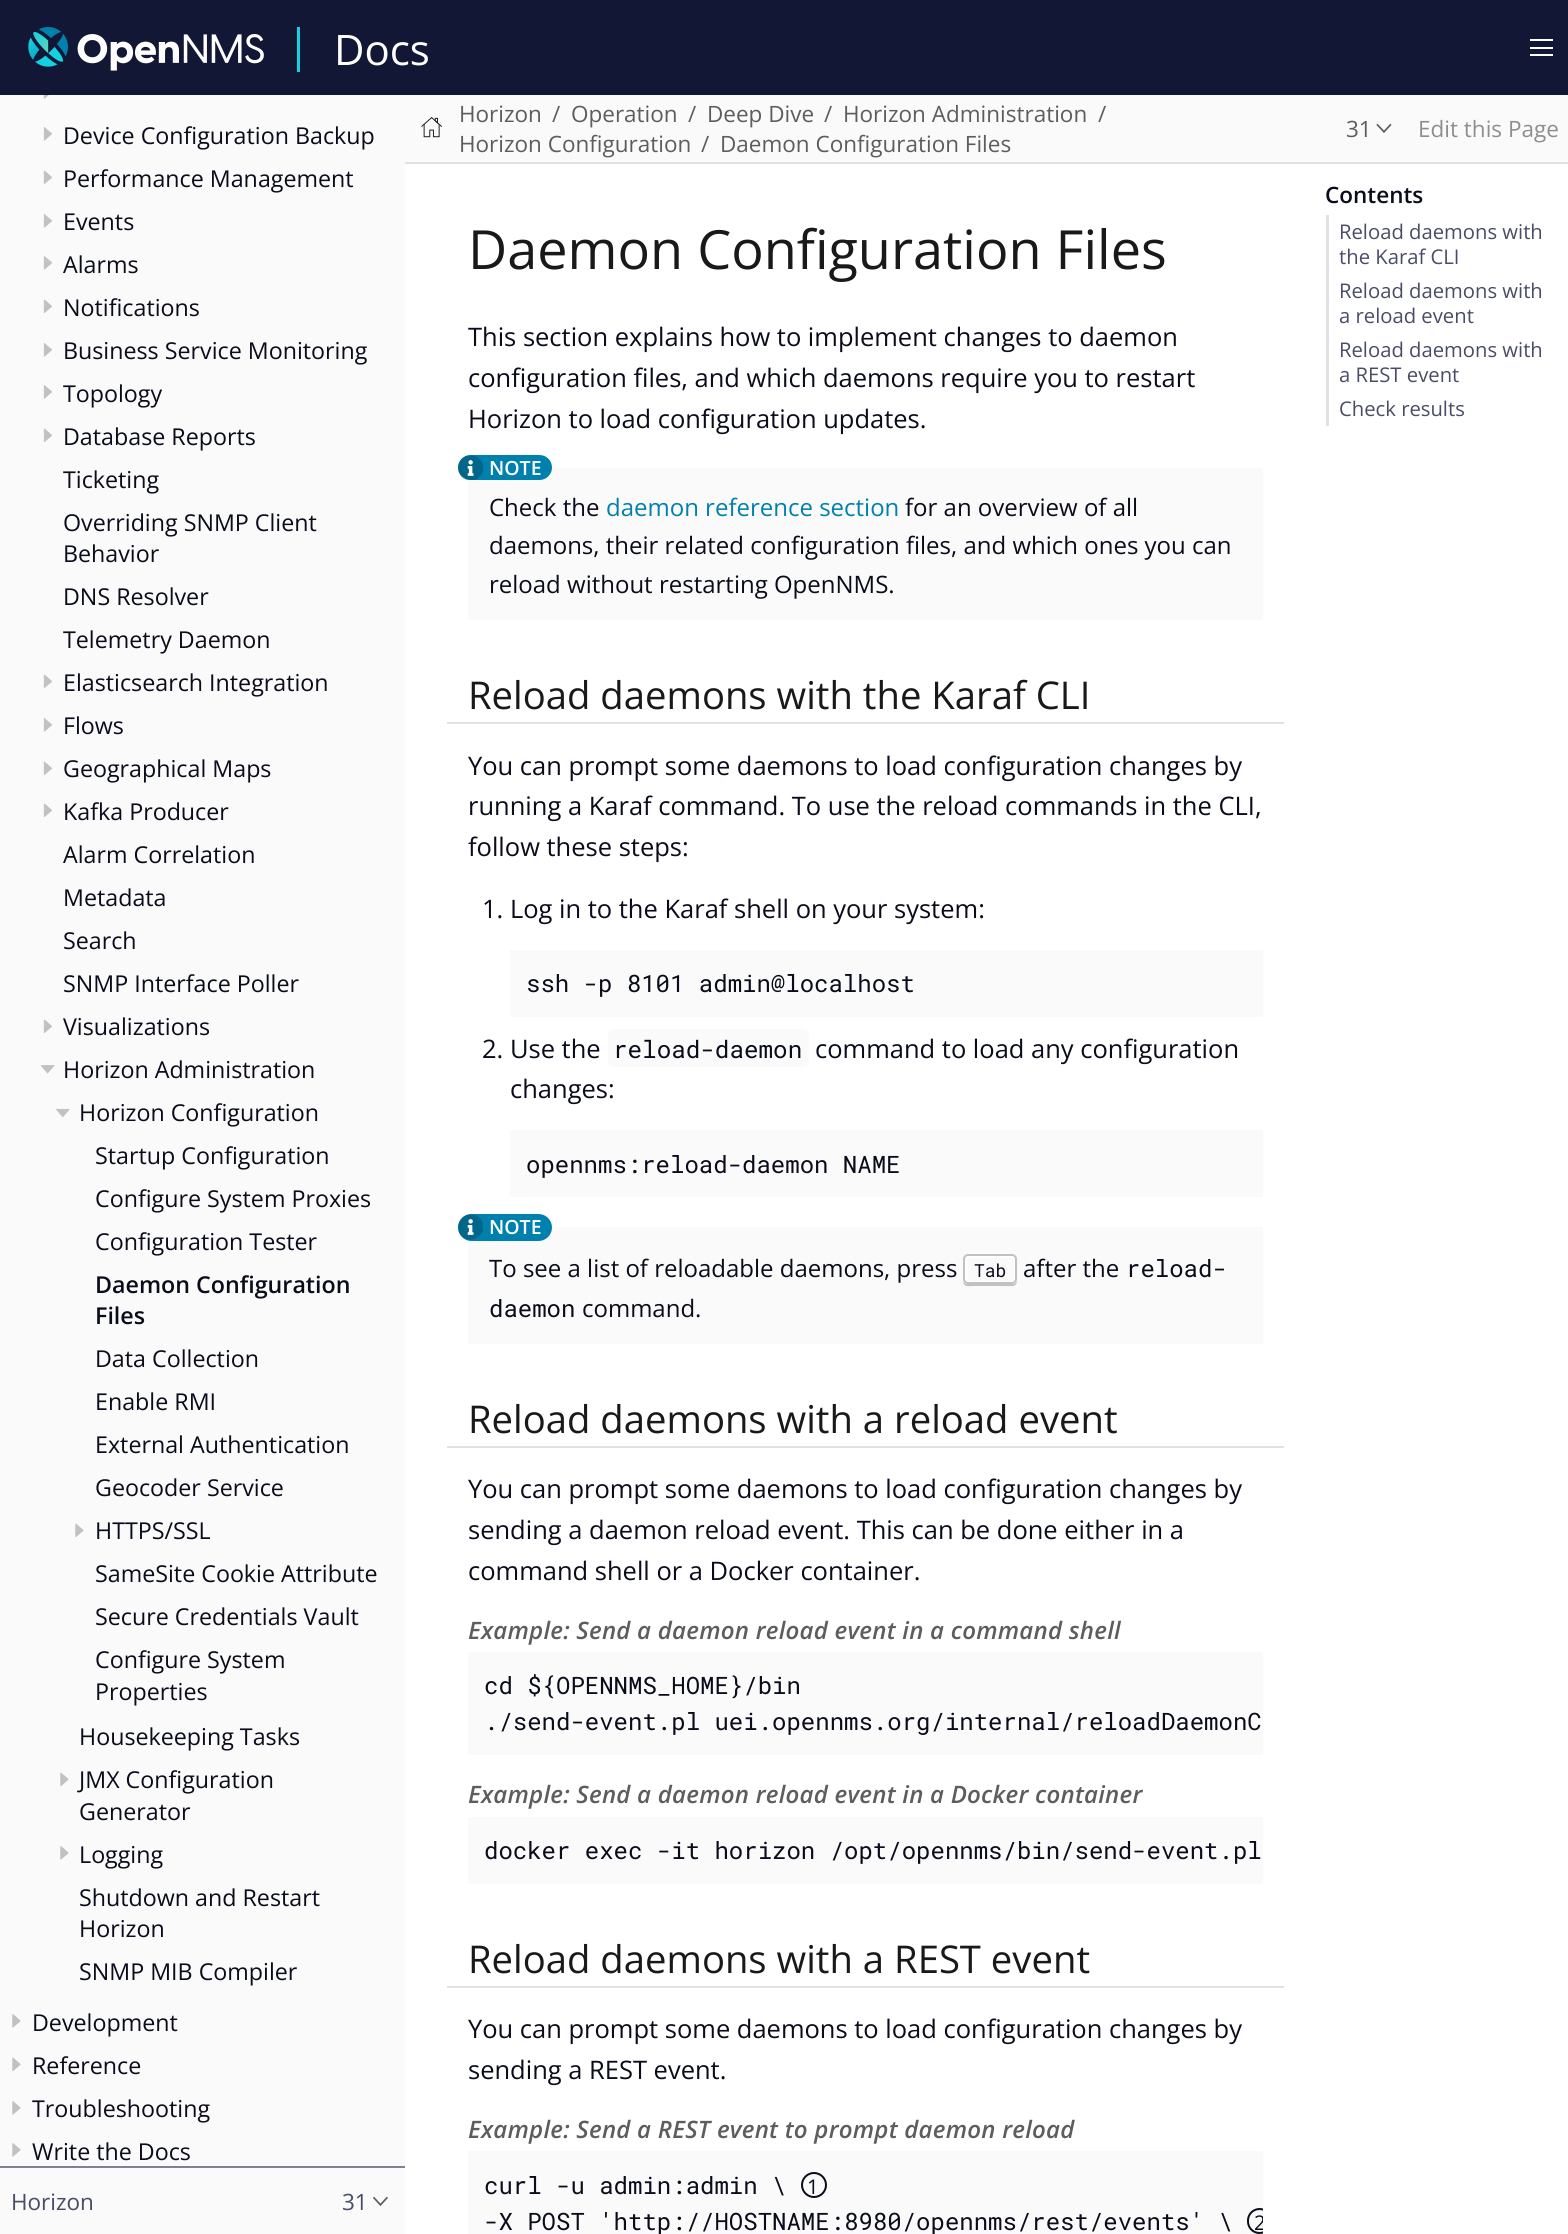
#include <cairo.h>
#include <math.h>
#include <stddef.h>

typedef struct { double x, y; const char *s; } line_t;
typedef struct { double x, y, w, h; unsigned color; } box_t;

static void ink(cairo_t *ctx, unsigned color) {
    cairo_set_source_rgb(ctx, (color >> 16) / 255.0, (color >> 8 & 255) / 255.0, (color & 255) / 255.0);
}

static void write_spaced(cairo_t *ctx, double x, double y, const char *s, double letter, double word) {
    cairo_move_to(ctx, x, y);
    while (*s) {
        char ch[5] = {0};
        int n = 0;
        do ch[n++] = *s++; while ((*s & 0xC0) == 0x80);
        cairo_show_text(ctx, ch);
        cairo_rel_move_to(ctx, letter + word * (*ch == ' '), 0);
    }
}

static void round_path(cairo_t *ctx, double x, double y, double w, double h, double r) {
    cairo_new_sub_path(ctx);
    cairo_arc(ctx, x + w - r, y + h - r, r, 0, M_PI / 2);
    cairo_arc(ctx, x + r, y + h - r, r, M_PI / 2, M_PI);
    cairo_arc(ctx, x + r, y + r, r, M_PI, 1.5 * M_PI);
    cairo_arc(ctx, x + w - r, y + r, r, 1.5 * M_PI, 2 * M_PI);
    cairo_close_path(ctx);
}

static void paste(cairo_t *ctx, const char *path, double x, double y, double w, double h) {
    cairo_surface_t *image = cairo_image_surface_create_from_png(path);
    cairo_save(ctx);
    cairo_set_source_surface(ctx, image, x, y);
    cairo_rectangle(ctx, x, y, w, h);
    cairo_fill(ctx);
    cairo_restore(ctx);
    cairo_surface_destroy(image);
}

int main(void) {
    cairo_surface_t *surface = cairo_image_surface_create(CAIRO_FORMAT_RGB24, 1568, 2234);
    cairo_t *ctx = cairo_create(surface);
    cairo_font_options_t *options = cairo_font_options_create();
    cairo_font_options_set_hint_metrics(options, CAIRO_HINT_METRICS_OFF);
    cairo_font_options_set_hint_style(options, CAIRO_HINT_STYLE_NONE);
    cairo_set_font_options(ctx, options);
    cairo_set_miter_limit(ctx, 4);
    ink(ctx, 0xFFFFFF);
    cairo_paint(ctx);
    ink(ctx, 0x131736);
    cairo_rectangle(ctx, 0, 0, 1568, 95);
    cairo_fill(ctx);
    paste(ctx, "media/1.png", 28, 27, 236, 44);
    ink(ctx, 0x14D1DF);
    cairo_rectangle(ctx, 297, 27, 3, 45);
    cairo_fill(ctx);
    cairo_select_font_face(ctx, "Open Sans", CAIRO_FONT_SLANT_NORMAL, CAIRO_FONT_WEIGHT_NORMAL);
    cairo_set_font_size(ctx, 42);
    ink(ctx, 0xFFFFFF);
    cairo_move_to(ctx, 334, 65);
    cairo_show_text(ctx, "Docs");
    {
        static const box_t items[] = {
            {1530, 39, 23, 2, 0xFFFFFF},
            {1530, 47, 23, 2, 0xFFFFFF},
            {1530, 54, 23, 2, 0xFFFFFF},
            {0, 95, 405, 2139, 0xFAFAFA},
        };
        for (size_t i = 0; i < sizeof items / sizeof *items; i++) {
            ink(ctx, items[i].color);
            cairo_rectangle(ctx, items[i].x, items[i].y, items[i].w, items[i].h);
            cairo_fill(ctx);
        }
    }
    paste(ctx, "media/2.png", 43, 95, 6, 4);
    paste(ctx, "media/3.png", 43, 127, 9, 14);
    cairo_set_font_size(ctx, 23.25);
    ink(ctx, 0x0A0C1B);
    cairo_move_to(ctx, 63, 144);
    cairo_show_text(ctx, "Device Configuration Backup");
    paste(ctx, "media/4.png", 43, 170, 9, 14);
    cairo_move_to(ctx, 63, 187);
    cairo_show_text(ctx, "Performance Management");
    paste(ctx, "media/3.png", 43, 214, 9, 14);
    cairo_move_to(ctx, 63, 230);
    cairo_show_text(ctx, "Events");
    paste(ctx, "media/3.png", 43, 256, 9, 14);
    cairo_move_to(ctx, 63, 273);
    cairo_show_text(ctx, "Alarms");
    paste(ctx, "media/4.png", 43, 299, 9, 14);
    cairo_move_to(ctx, 63, 316);
    cairo_show_text(ctx, "Notifications");
    paste(ctx, "media/3.png", 43, 343, 9, 14);
    cairo_move_to(ctx, 63, 359);
    cairo_show_text(ctx, "Business Service Monitoring");
    paste(ctx, "media/3.png", 43, 385, 9, 14);
    cairo_move_to(ctx, 63, 402);
    cairo_show_text(ctx, "Topology");
    paste(ctx, "media/4.png", 43, 428, 9, 14);
    {
        static const line_t items[] = {
            {63, 445, "Database Reports"},
            {63, 488, "Ticketing"},
            {63, 531, "Overriding SNMP Client"},
            {63, 562, "Behavior"},
            {63, 605, "DNS Resolver"},
            {63, 648, "Telemetry Daemon"},
        };
        for (size_t i = 0; i < sizeof items / sizeof *items; i++) {
            cairo_move_to(ctx, items[i].x, items[i].y);
            cairo_show_text(ctx, items[i].s);
        }
    }
    paste(ctx, "media/4.png", 43, 674, 9, 14);
    cairo_move_to(ctx, 63, 691);
    cairo_show_text(ctx, "Elasticsearch Integration");
    paste(ctx, "media/3.png", 43, 718, 9, 14);
    cairo_move_to(ctx, 63, 734);
    cairo_show_text(ctx, "Flows");
    paste(ctx, "media/4.png", 43, 761, 9, 14);
    cairo_move_to(ctx, 63, 777);
    cairo_show_text(ctx, "Geographical Maps");
    paste(ctx, "media/4.png", 43, 803, 9, 14);
    {
        static const line_t items[] = {
            {63, 820, "Kafka Producer"},
            {63, 863, "Alarm Correlation"},
            {63, 906, "Metadata"},
            {63, 949, "Search"},
            {63, 992, "SNMP Interface Poller"},
        };
        for (size_t i = 0; i < sizeof items / sizeof *items; i++) {
            cairo_move_to(ctx, items[i].x, items[i].y);
            cairo_show_text(ctx, items[i].s);
        }
    }
    paste(ctx, "media/4.png", 43, 1019, 9, 14);
    cairo_move_to(ctx, 63, 1035);
    cairo_show_text(ctx, "Visualizations");
    paste(ctx, "media/5.png", 40, 1065, 15, 9);
    cairo_move_to(ctx, 63, 1078);
    cairo_show_text(ctx, "Horizon Administration");
    paste(ctx, "media/6.png", 56, 1108, 14, 9);
    {
        static const line_t items[] = {
            {79, 1121, "Horizon Configuration"},
            {95, 1164, "Startup Configuration"},
            {95, 1207, "Configure System Proxies"},
            {95, 1250, "Configuration Tester"},
        };
        for (size_t i = 0; i < sizeof items / sizeof *items; i++) {
            cairo_move_to(ctx, items[i].x, items[i].y);
            cairo_show_text(ctx, items[i].s);
        }
    }
    cairo_select_font_face(ctx, "Open Sans SemiBold", CAIRO_FONT_SLANT_NORMAL, CAIRO_FONT_WEIGHT_NORMAL);
    cairo_move_to(ctx, 95, 1293);
    cairo_show_text(ctx, "Daemon Configuration");
    cairo_move_to(ctx, 95, 1324);
    cairo_show_text(ctx, "Files");
    cairo_select_font_face(ctx, "Open Sans", CAIRO_FONT_SLANT_NORMAL, CAIRO_FONT_WEIGHT_NORMAL);
    {
        static const line_t items[] = {
            {95, 1367, "Data Collection"},
            {95, 1410, "Enable RMI"},
            {95, 1453, "External Authentication"},
            {95, 1496, "Geocoder Service"},
        };
        for (size_t i = 0; i < sizeof items / sizeof *items; i++) {
            cairo_move_to(ctx, items[i].x, items[i].y);
            cairo_show_text(ctx, items[i].s);
        }
    }
    paste(ctx, "media/7.png", 75, 1523, 9, 14);
    {
        static const line_t items[] = {
            {95, 1539, "HTTPS/SSL"},
            {95, 1582, "SameSite Cookie Attribute"},
            {95, 1625, "Secure Credentials Vault"},
            {95, 1668, "Configure System"},
            {95, 1700, "Properties"},
            {79, 1745, "Housekeeping Tasks"},
        };
        for (size_t i = 0; i < sizeof items / sizeof *items; i++) {
            cairo_move_to(ctx, items[i].x, items[i].y);
            cairo_show_text(ctx, items[i].s);
        }
    }
    paste(ctx, "media/7.png", 60, 1772, 9, 14);
    cairo_move_to(ctx, 79, 1788);
    cairo_show_text(ctx, "JMX Configuration");
    cairo_move_to(ctx, 79, 1820);
    cairo_show_text(ctx, "Generator");
    paste(ctx, "media/8.png", 60, 1846, 9, 14);
    {
        static const line_t items[] = {
            {79, 1863, "Logging"},
            {79, 1906, "Shutdown and Restart"},
            {79, 1937, "Horizon"},
            {79, 1980, "SNMP MIB Compiler"},
        };
        for (size_t i = 0; i < sizeof items / sizeof *items; i++) {
            cairo_move_to(ctx, items[i].x, items[i].y);
            cairo_show_text(ctx, items[i].s);
        }
    }
    paste(ctx, "media/8.png", 12, 2014, 9, 14);
    cairo_move_to(ctx, 32, 2031);
    cairo_show_text(ctx, "Development");
    paste(ctx, "media/7.png", 12, 2057, 9, 14);
    cairo_move_to(ctx, 32, 2074);
    cairo_show_text(ctx, "Reference");
    paste(ctx, "media/8.png", 12, 2101, 9, 14);
    cairo_move_to(ctx, 32, 2117);
    cairo_show_text(ctx, "Troubleshooting");
    paste(ctx, "media/8.png", 12, 2143, 9, 14);
    cairo_move_to(ctx, 32, 2160);
    cairo_show_text(ctx, "Write the Docs");
    ink(ctx, 0x7E8198);
    cairo_rectangle(ctx, 0, 2166, 405, 2);
    cairo_fill(ctx);
    cairo_set_font_size(ctx, 22.5);
    ink(ctx, 0x494C67);
    cairo_move_to(ctx, 11, 2210);
    cairo_show_text(ctx, "Horizon");
    paste(ctx, "media/9.png", 372, 2196, 16, 10);
    cairo_move_to(ctx, 342, 2210);
    cairo_show_text(ctx, "31");
    ink(ctx, 0xE1E1E1);
    cairo_rectangle(ctx, 405, 162, 1163, 2);
    cairo_fill(ctx);
    ink(ctx, 0xFAFAFA);
    cairo_rectangle(ctx, 405, 95, 1163, 67);
    cairo_fill(ctx);
    paste(ctx, "media/10.png", 421, 117, 21, 21);
    ink(ctx, 0x5D5D5D);
    {
        static const line_t items[] = {
            {459, 122, "Horizon"},
            {552, 122, "/"},
            {571, 122, "Operation"},
            {688, 122, "/"},
            {707, 122, "Deep Dive"},
            {824, 122, "/"},
            {843, 122, "Horizon Administration"},
            {1098, 122, "/"},
            {459, 152, "Horizon Configuration"},
            {701, 152, "/"},
            {720, 152, "Daemon Configuration Files"},
        };
        for (size_t i = 0; i < sizeof items / sizeof *items; i++) {
            cairo_move_to(ctx, items[i].x, items[i].y);
            cairo_show_text(ctx, items[i].s);
        }
    }
    paste(ctx, "media/11.png", 1376, 123, 16, 10);
    cairo_move_to(ctx, 1346, 137);
    cairo_show_text(ctx, "31");
    ink(ctx, 0x8E8E8E);
    cairo_move_to(ctx, 1418, 137);
    cairo_show_text(ctx, "Edit this Page");
    cairo_set_font_size(ctx, 54);
    ink(ctx, 0x191919);
    cairo_move_to(ctx, 468, 269);
    cairo_show_text(ctx, "Daemon Configuration Files");
    cairo_set_font_size(ctx, 25.5);
    ink(ctx, 0x0A0C1B);
    {
        static const line_t items[] = {
            {468, 346, "This section explains how to implement changes to daemon"},
            {468, 387, "configuration files, and which daemons require you to restart"},
            {468, 428, "Horizon to load configuration updates."},
        };
        for (size_t i = 0; i < sizeof items / sizeof *items; i++) {
            cairo_move_to(ctx, items[i].x, items[i].y);
            cairo_show_text(ctx, items[i].s);
        }
    }
    ink(ctx, 0xFAFAFA);
    cairo_rectangle(ctx, 468, 468, 795, 152);
    cairo_fill(ctx);
    ink(ctx, 0x0081AD);
    round_path(ctx, 458, 455, 94, 25, 12.5);
    cairo_fill(ctx);
    paste(ctx, "media/12.png", 458, 455, 25, 25);
    cairo_select_font_face(ctx, "Open Sans SemiBold", CAIRO_FONT_SLANT_NORMAL, CAIRO_FONT_WEIGHT_NORMAL);
    cairo_set_font_size(ctx, 19.5);
    ink(ctx, 0xFFFFFF);
    cairo_move_to(ctx, 489, 475);
    cairo_show_text(ctx, "NOTE");
    cairo_select_font_face(ctx, "Open Sans", CAIRO_FONT_SLANT_NORMAL, CAIRO_FONT_WEIGHT_NORMAL);
    cairo_set_font_size(ctx, 24);
    ink(ctx, 0x0A0C1B);
    cairo_move_to(ctx, 489, 516);
    cairo_show_text(ctx, "Check the");
    ink(ctx, 0x0081AD);
    cairo_move_to(ctx, 606, 516);
    cairo_show_text(ctx, "daemon reference section");
    ink(ctx, 0x0A0C1B);
    {
        static const line_t items[] = {
            {905, 516, "for an overview of all"},
            {489, 554, "daemons, their related configuration files, and which ones you can"},
            {489, 593, "reload without restarting OpenNMS."},
        };
        for (size_t i = 0; i < sizeof items / sizeof *items; i++) {
            cairo_move_to(ctx, items[i].x, items[i].y);
            cairo_show_text(ctx, items[i].s);
        }
    }
    ink(ctx, 0xE1E1E1);
    cairo_rectangle(ctx, 447, 722, 837, 2);
    cairo_fill(ctx);
    cairo_set_font_size(ctx, 38.25);
    ink(ctx, 0x191919);
    cairo_move_to(ctx, 468, 709);
    cairo_show_text(ctx, "Reload daemons with the Karaf CLI");
    cairo_set_font_size(ctx, 25.5);
    ink(ctx, 0x0A0C1B);
    {
        static const line_t items[] = {
            {468, 775, "You can prompt some daemons to load configuration changes by"},
            {468, 815, "running a Karaf command. To use the reload commands in the CLI,"},
            {468, 856, "follow these steps:"},
            {482, 918, "1. Log in to the Karaf shell on your system:"},
        };
        for (size_t i = 0; i < sizeof items / sizeof *items; i++) {
            cairo_move_to(ctx, items[i].x, items[i].y);
            cairo_show_text(ctx, items[i].s);
        }
    }
    ink(ctx, 0xFAFAFA);
    cairo_rectangle(ctx, 510, 950, 753, 67);
    cairo_fill(ctx);
    cairo_select_font_face(ctx, "Roboto Mono", CAIRO_FONT_SLANT_NORMAL, CAIRO_FONT_WEIGHT_NORMAL);
    cairo_set_font_size(ctx, 24);
    ink(ctx, 0x0A0C1B);
    cairo_move_to(ctx, 526, 992);
    cairo_show_text(ctx, "ssh -p 8101 admin@localhost");
    cairo_select_font_face(ctx, "Open Sans", CAIRO_FONT_SLANT_NORMAL, CAIRO_FONT_WEIGHT_NORMAL);
    cairo_set_font_size(ctx, 25.5);
    cairo_move_to(ctx, 482, 1058);
    cairo_show_text(ctx, "2. Use the");
    ink(ctx, 0xFAFAFA);
    round_path(ctx, 608, 1029, 201, 38, 6);
    cairo_fill(ctx);
    cairo_select_font_face(ctx, "Roboto Mono", CAIRO_FONT_SLANT_NORMAL, CAIRO_FONT_WEIGHT_NORMAL);
    cairo_set_font_size(ctx, 24.25);
    ink(ctx, 0x0A0C1B);
    cairo_move_to(ctx, 613, 1058);
    cairo_show_text(ctx, "reload-daemon");
    cairo_select_font_face(ctx, "Open Sans", CAIRO_FONT_SLANT_NORMAL, CAIRO_FONT_WEIGHT_NORMAL);
    cairo_set_font_size(ctx, 25.5);
    cairo_move_to(ctx, 815, 1058);
    cairo_show_text(ctx, "command to load any configuration");
    cairo_move_to(ctx, 510, 1098);
    cairo_show_text(ctx, "changes:");
    ink(ctx, 0xFAFAFA);
    cairo_rectangle(ctx, 510, 1130, 753, 67);
    cairo_fill(ctx);
    cairo_select_font_face(ctx, "Roboto Mono", CAIRO_FONT_SLANT_NORMAL, CAIRO_FONT_WEIGHT_NORMAL);
    cairo_set_font_size(ctx, 24);
    ink(ctx, 0x0A0C1B);
    cairo_move_to(ctx, 526, 1173);
    cairo_show_text(ctx, "opennms:reload-daemon NAME");
    ink(ctx, 0xFAFAFA);
    cairo_rectangle(ctx, 468, 1227, 795, 117);
    cairo_fill(ctx);
    ink(ctx, 0x0081AD);
    round_path(ctx, 458, 1214, 94, 27, 13.5);
    cairo_fill(ctx);
    paste(ctx, "media/13.png", 458, 1214, 25, 26);
    cairo_select_font_face(ctx, "Open Sans SemiBold", CAIRO_FONT_SLANT_NORMAL, CAIRO_FONT_WEIGHT_NORMAL);
    cairo_set_font_size(ctx, 19.5);
    ink(ctx, 0xFFFFFF);
    cairo_move_to(ctx, 489, 1234);
    cairo_show_text(ctx, "NOTE");
    cairo_select_font_face(ctx, "Open Sans", CAIRO_FONT_SLANT_NORMAL, CAIRO_FONT_WEIGHT_NORMAL);
    cairo_set_font_size(ctx, 24);
    ink(ctx, 0x0A0C1B);
    cairo_move_to(ctx, 489, 1277);
    cairo_show_text(ctx, "To see a list of reloadable daemons, press");
    ink(ctx, 0xC1C1C1);
    cairo_new_path(ctx);
    cairo_move_to(ctx, 963, 1280);
    cairo_curve_to(ctx, 963, 1288, 969, 1286, 975, 1286);
    cairo_line_to(ctx, 1005, 1286);
    cairo_curve_to(ctx, 1011, 1286, 1017, 1288, 1017, 1280);
    cairo_curve_to(ctx, 1017, 1282, 1015, 1284, 1012, 1284);
    cairo_line_to(ctx, 968, 1284);
    cairo_curve_to(ctx, 965, 1284, 963, 1282, 963, 1280);
    cairo_close_path(ctx);
    cairo_fill(ctx);
    ink(ctx, 0xFAFAFA);
    round_path(ctx, 963, 1254, 54, 30, 5);
    cairo_fill(ctx);
    round_path(ctx, 966, 1257, 49, 25, 2);
    ink(ctx, 0xFFFFFF);
    cairo_stroke(ctx);
    round_path(ctx, 964, 1255, 52, 28, 4);
    ink(ctx, 0xC1C1C1);
    cairo_stroke(ctx);
    cairo_select_font_face(ctx, "Roboto Mono", CAIRO_FONT_SLANT_NORMAL, CAIRO_FONT_WEIGHT_NORMAL);
    cairo_set_font_size(ctx, 18);
    ink(ctx, 0x0A0C1B);
    cairo_move_to(ctx, 974, 1277);
    cairo_show_text(ctx, "Tab");
    cairo_select_font_face(ctx, "Open Sans", CAIRO_FONT_SLANT_NORMAL, CAIRO_FONT_WEIGHT_NORMAL);
    cairo_set_font_size(ctx, 24);
    cairo_move_to(ctx, 1023, 1277);
    cairo_show_text(ctx, "after the");
    cairo_select_font_face(ctx, "Roboto Mono", CAIRO_FONT_SLANT_NORMAL, CAIRO_FONT_WEIGHT_NORMAL);
    cairo_move_to(ctx, 1126, 1277);
    cairo_show_text(ctx, "reload-");
    cairo_move_to(ctx, 489, 1317);
    cairo_show_text(ctx, "daemon");
    cairo_select_font_face(ctx, "Open Sans", CAIRO_FONT_SLANT_NORMAL, CAIRO_FONT_WEIGHT_NORMAL);
    cairo_move_to(ctx, 582, 1317);
    cairo_show_text(ctx, "command.");
    ink(ctx, 0xE1E1E1);
    cairo_rectangle(ctx, 447, 1446, 837, 2);
    cairo_fill(ctx);
    cairo_set_font_size(ctx, 38.25);
    ink(ctx, 0x191919);
    cairo_move_to(ctx, 468, 1433);
    cairo_show_text(ctx, "Reload daemons with a reload event");
    cairo_set_font_size(ctx, 25.5);
    ink(ctx, 0x0A0C1B);
    {
        static const line_t items[] = {
            {468, 1498, "You can prompt some daemons to load configuration changes by"},
            {468, 1539, "sending a daemon reload event. This can be done either in a"},
            {468, 1580, "command shell or a Docker container."},
        };
        for (size_t i = 0; i < sizeof items / sizeof *items; i++) {
            cairo_move_to(ctx, items[i].x, items[i].y);
            cairo_show_text(ctx, items[i].s);
        }
    }
    cairo_select_font_face(ctx, "Open Sans SemiBold", CAIRO_FONT_SLANT_ITALIC, CAIRO_FONT_WEIGHT_NORMAL);
    cairo_set_font_size(ctx, 24);
    ink(ctx, 0x5D5D5D);
    write_spaced(ctx, 468, 1639, "Example: Send a daemon reload event in a command shell", 0.25, 0);
    ink(ctx, 0xFAFAFA);
    cairo_rectangle(ctx, 468, 1652, 795, 103);
    cairo_fill(ctx);
    cairo_select_font_face(ctx, "Roboto Mono", CAIRO_FONT_SLANT_NORMAL, CAIRO_FONT_WEIGHT_NORMAL);
    ink(ctx, 0x0A0C1B);
    cairo_move_to(ctx, 484, 1694);
    cairo_show_text(ctx, "cd ${OPENNMS_HOME}/bin");
    cairo_move_to(ctx, 484, 1730);
    cairo_show_text(ctx, "./send-event.pl uei.opennms.org/internal/reloadDaemonC");
    cairo_select_font_face(ctx, "Open Sans SemiBold", CAIRO_FONT_SLANT_ITALIC, CAIRO_FONT_WEIGHT_NORMAL);
    ink(ctx, 0x5D5D5D);
    write_spaced(ctx, 468, 1803, "Example: Send a daemon reload event in a Docker container", 0.25, 0);
    ink(ctx, 0xFAFAFA);
    cairo_rectangle(ctx, 468, 1817, 795, 67);
    cairo_fill(ctx);
    cairo_select_font_face(ctx, "Roboto Mono", CAIRO_FONT_SLANT_NORMAL, CAIRO_FONT_WEIGHT_NORMAL);
    ink(ctx, 0x0A0C1B);
    cairo_move_to(ctx, 484, 1859);
    cairo_show_text(ctx, "docker exec -it horizon /opt/opennms/bin/send-event.pl");
    ink(ctx, 0xE1E1E1);
    cairo_rectangle(ctx, 447, 1986, 837, 2);
    cairo_fill(ctx);
    cairo_select_font_face(ctx, "Open Sans", CAIRO_FONT_SLANT_NORMAL, CAIRO_FONT_WEIGHT_NORMAL);
    cairo_set_font_size(ctx, 38.25);
    ink(ctx, 0x191919);
    cairo_move_to(ctx, 468, 1973);
    cairo_show_text(ctx, "Reload daemons with a REST event");
    cairo_set_font_size(ctx, 25.5);
    ink(ctx, 0x0A0C1B);
    cairo_move_to(ctx, 468, 2038);
    cairo_show_text(ctx, "You can prompt some daemons to load configuration changes by");
    cairo_move_to(ctx, 468, 2079);
    cairo_show_text(ctx, "sending a REST event.");
    cairo_select_font_face(ctx, "Open Sans SemiBold", CAIRO_FONT_SLANT_ITALIC, CAIRO_FONT_WEIGHT_NORMAL);
    cairo_set_font_size(ctx, 24);
    ink(ctx, 0x5D5D5D);
    write_spaced(ctx, 468, 2138, "Example: Send a REST event to prompt daemon reload", 0.25, 0);
    ink(ctx, 0xFAFAFA);
    cairo_rectangle(ctx, 468, 2151, 795, 83);
    cairo_fill(ctx);
    cairo_select_font_face(ctx, "Roboto Mono", CAIRO_FONT_SLANT_NORMAL, CAIRO_FONT_WEIGHT_NORMAL);
    ink(ctx, 0x0A0C1B);
    cairo_move_to(ctx, 484, 2194);
    cairo_show_text(ctx, "curl -u admin:admin \\");
    cairo_new_path(ctx);
    cairo_arc(ctx, 814, 2185, 12, 0, 2 * M_PI);
    cairo_stroke(ctx);
    cairo_select_font_face(ctx, "Open Sans", CAIRO_FONT_SLANT_NORMAL, CAIRO_FONT_WEIGHT_NORMAL);
    cairo_set_font_size(ctx, 20.25);
    write_spaced(ctx, 807, 2194, "1", -3, 0);
    cairo_select_font_face(ctx, "Roboto Mono", CAIRO_FONT_SLANT_NORMAL, CAIRO_FONT_WEIGHT_NORMAL);
    cairo_set_font_size(ctx, 24);
    cairo_move_to(ctx, 484, 2230);
    cairo_show_text(ctx, "-X POST 'http://HOSTNAME:8980/opennms/rest/events' \\");
    cairo_save(ctx);
    cairo_rectangle(ctx, 468, 2151, 795, 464);
    cairo_clip(ctx);
    round_path(ctx, 1248, 2209, 23, 24, 11.5);
    cairo_stroke(ctx);
    cairo_select_font_face(ctx, "Open Sans", CAIRO_FONT_SLANT_NORMAL, CAIRO_FONT_WEIGHT_NORMAL);
    cairo_set_font_size(ctx, 20.25);
    write_spaced(ctx, 1254, 2230, "2", -3, 0);
    cairo_restore(ctx);
    cairo_select_font_face(ctx, "Open Sans SemiBold", CAIRO_FONT_SLANT_NORMAL, CAIRO_FONT_WEIGHT_NORMAL);
    cairo_set_font_size(ctx, 22.5);
    cairo_move_to(ctx, 1325, 203);
    cairo_show_text(ctx, "Contents");
    ink(ctx, 0xE1E1E1);
    cairo_rectangle(ctx, 1326, 215, 3, 211);
    cairo_fill(ctx);
    cairo_select_font_face(ctx, "Open Sans", CAIRO_FONT_SLANT_NORMAL, CAIRO_FONT_WEIGHT_NORMAL);
    cairo_set_font_size(ctx, 20.25);
    ink(ctx, 0x494C67);
    {
        static const line_t items[] = {
            {1339, 239, "Reload daemons with"},
            {1339, 264, "the Karaf CLI"},
            {1339, 298, "Reload daemons with"},
            {1339, 323, "a reload event"},
            {1339, 357, "Reload daemons with"},
            {1339, 382, "a REST event"},
            {1339, 416, "Check results"},
        };
        for (size_t i = 0; i < sizeof items / sizeof *items; i++) {
            cairo_move_to(ctx, items[i].x, items[i].y);
            cairo_show_text(ctx, items[i].s);
        }
    }
    cairo_surface_write_to_png(surface, "image.png");
    cairo_font_options_destroy(options);
    cairo_destroy(ctx);
    cairo_surface_destroy(surface);
    return 0;
}
